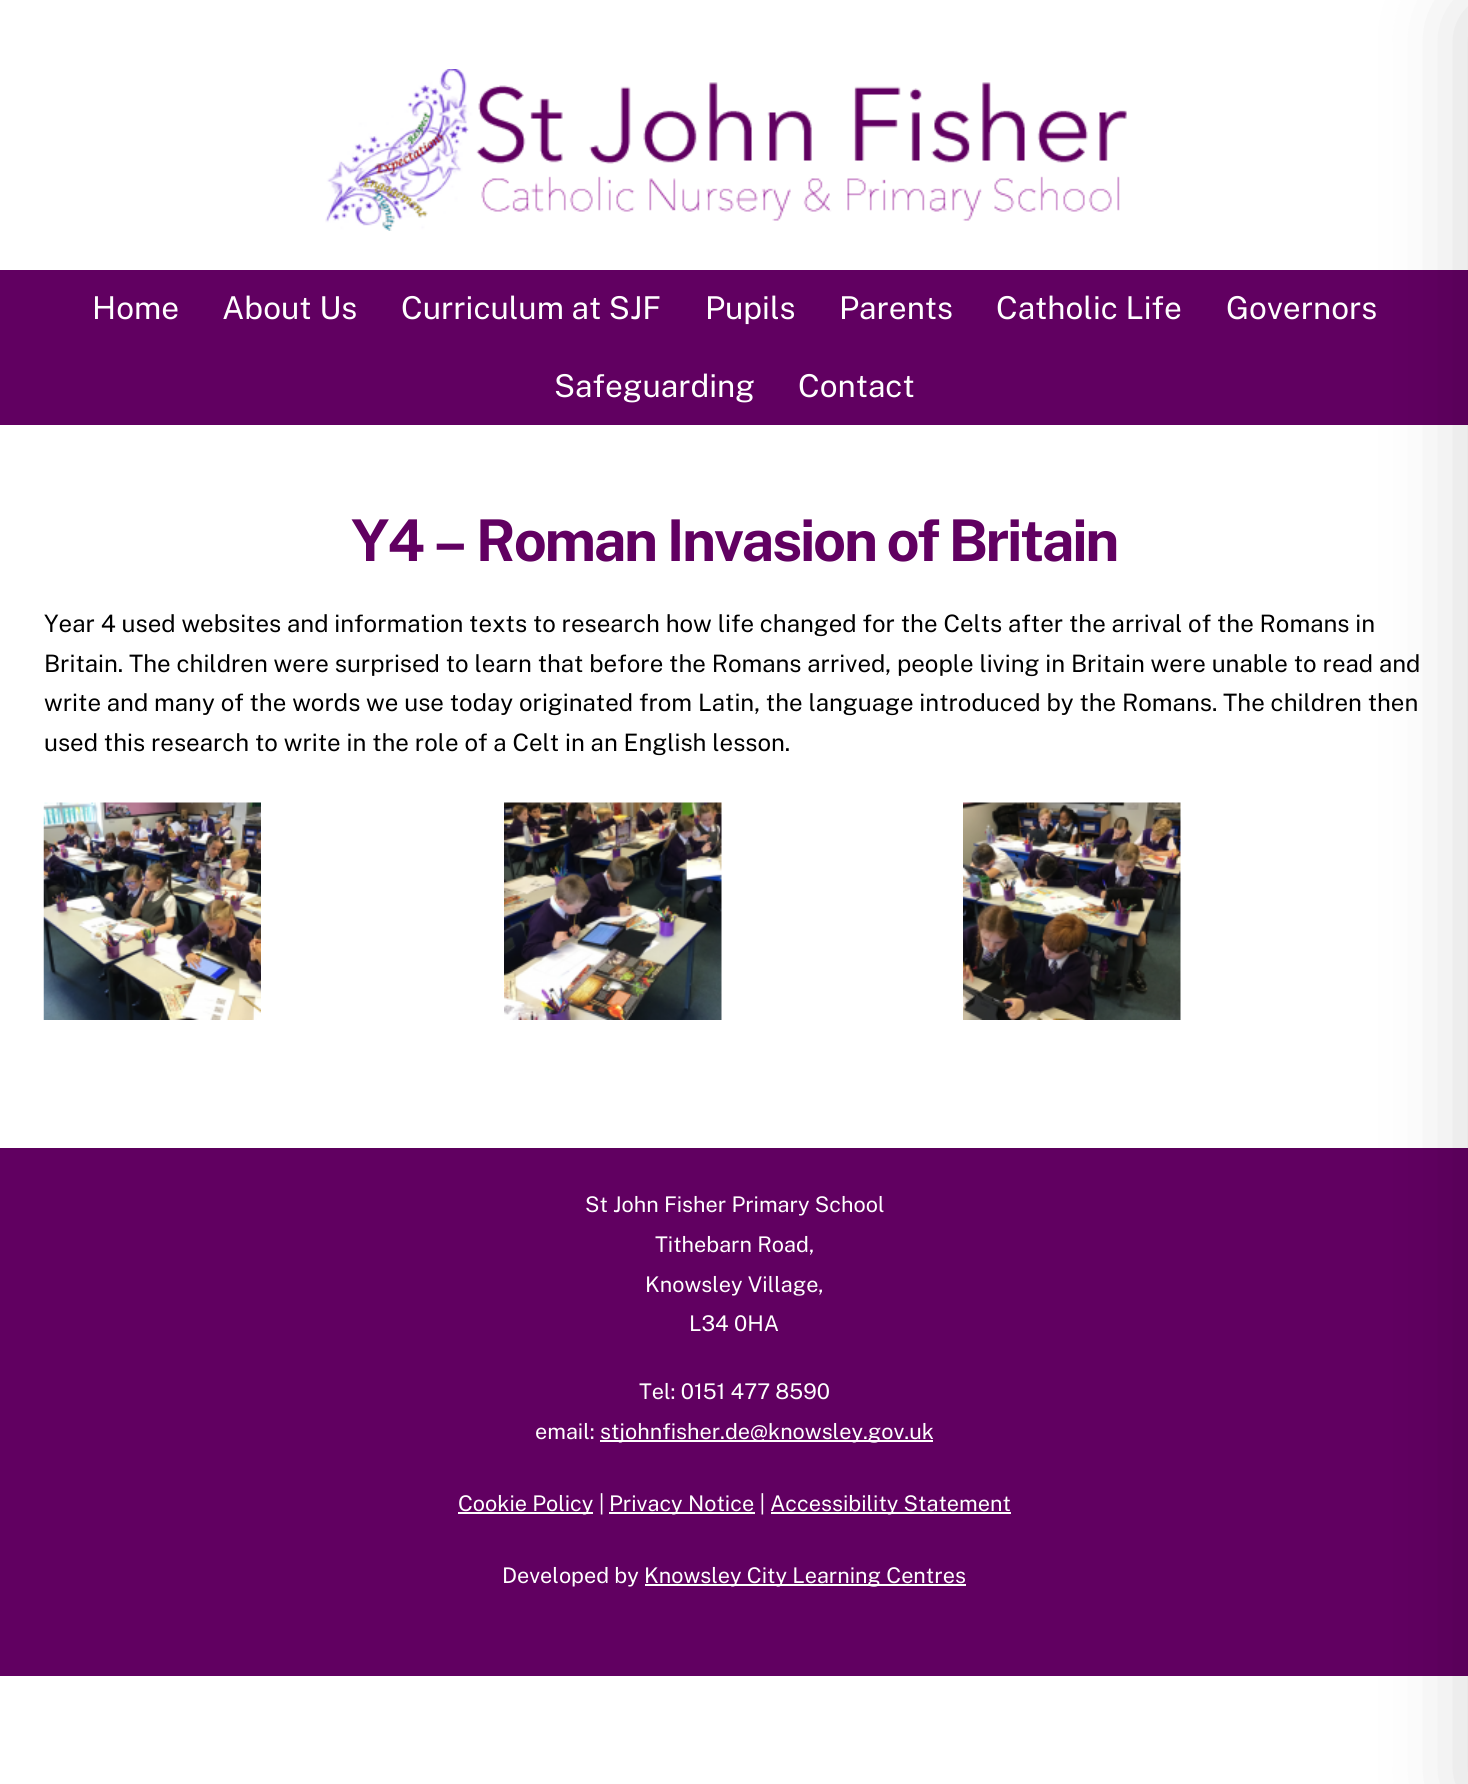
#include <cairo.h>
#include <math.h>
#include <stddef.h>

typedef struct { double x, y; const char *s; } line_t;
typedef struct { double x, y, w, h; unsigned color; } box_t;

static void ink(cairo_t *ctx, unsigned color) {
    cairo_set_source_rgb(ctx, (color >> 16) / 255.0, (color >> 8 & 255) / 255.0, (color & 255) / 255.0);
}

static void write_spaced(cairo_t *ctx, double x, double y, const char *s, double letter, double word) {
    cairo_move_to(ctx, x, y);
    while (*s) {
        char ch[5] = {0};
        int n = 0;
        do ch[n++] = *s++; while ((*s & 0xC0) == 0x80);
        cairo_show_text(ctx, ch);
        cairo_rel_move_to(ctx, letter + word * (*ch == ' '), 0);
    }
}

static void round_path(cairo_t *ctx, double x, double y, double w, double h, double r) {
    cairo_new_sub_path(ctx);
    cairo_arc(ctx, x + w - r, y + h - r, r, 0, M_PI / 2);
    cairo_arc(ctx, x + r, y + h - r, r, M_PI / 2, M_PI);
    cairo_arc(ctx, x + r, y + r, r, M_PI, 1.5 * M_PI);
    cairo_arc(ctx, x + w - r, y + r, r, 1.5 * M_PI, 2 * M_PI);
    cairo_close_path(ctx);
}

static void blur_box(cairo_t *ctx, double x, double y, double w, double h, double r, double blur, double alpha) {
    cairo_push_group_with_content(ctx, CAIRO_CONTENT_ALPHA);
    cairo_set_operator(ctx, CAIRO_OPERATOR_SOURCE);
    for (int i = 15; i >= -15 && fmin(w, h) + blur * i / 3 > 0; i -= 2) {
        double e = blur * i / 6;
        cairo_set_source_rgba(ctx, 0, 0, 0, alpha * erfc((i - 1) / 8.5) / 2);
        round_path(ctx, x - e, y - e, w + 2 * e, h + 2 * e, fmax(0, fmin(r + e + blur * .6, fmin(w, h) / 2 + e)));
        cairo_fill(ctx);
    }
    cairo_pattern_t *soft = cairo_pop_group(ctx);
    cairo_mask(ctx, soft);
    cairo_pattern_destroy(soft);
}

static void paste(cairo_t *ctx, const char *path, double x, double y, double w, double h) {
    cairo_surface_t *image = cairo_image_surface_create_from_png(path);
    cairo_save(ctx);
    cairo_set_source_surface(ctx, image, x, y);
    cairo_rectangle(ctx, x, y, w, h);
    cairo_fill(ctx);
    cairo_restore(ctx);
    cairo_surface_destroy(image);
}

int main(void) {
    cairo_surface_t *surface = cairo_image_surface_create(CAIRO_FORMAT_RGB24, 1468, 1784);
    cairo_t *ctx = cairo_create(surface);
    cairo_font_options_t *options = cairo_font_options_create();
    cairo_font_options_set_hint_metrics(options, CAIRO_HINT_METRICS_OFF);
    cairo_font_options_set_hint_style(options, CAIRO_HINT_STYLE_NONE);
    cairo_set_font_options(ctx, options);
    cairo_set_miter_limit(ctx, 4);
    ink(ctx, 0xFFFFFF);
    cairo_paint(ctx);
    {
        static const box_t items[] = {
            {0, 270, 1468, 155, 0x610061},
            {0, 1150, 1468, 526, 0x610061},
            {0, 1148, 1468, 2, 0x5C005C},
        };
        for (size_t i = 0; i < sizeof items / sizeof *items; i++) {
            ink(ctx, items[i].color);
            cairo_rectangle(ctx, items[i].x, items[i].y, items[i].w, items[i].h);
            cairo_fill(ctx);
        }
    }
    ink(ctx, 0x000000);
    blur_box(ctx, 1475, 15, 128, 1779, 0, 45, 0.2);
    paste(ctx, "media/1.png", 325, 69, 802, 162);
    cairo_select_font_face(ctx, "Public Sans", CAIRO_FONT_SLANT_NORMAL, CAIRO_FONT_WEIGHT_NORMAL);
    cairo_set_font_size(ctx, 31.5);
    ink(ctx, 0xFFFFFF);
    {
        static const line_t items[] = {
            {92, 319, "Home"},
            {222, 319, "About Us"},
            {401, 319, "Curriculum at SJF"},
            {705, 319, "Pupils"},
            {839, 319, "Parents"},
            {996, 319, "Catholic Life"},
            {1226, 319, "Governors"},
            {554, 397, "Safeguarding"},
            {798, 397, "Contact"},
        };
        for (size_t i = 0; i < sizeof items / sizeof *items; i++) {
            cairo_move_to(ctx, items[i].x, items[i].y);
            cairo_show_text(ctx, items[i].s);
        }
    }
    cairo_select_font_face(ctx, "Public Sans", CAIRO_FONT_SLANT_NORMAL, CAIRO_FONT_WEIGHT_BOLD);
    cairo_set_font_size(ctx, 57.6);
    ink(ctx, 0x610061);
    write_spaced(ctx, 351, 561, "Y4 – Roman Invasion of Britain", -2.3, 0);
    cairo_select_font_face(ctx, "Public Sans", CAIRO_FONT_SLANT_NORMAL, CAIRO_FONT_WEIGHT_NORMAL);
    cairo_set_font_size(ctx, 24);
    ink(ctx, 0x000000);
    {
        static const line_t items[] = {
            {44, 632, "Year 4 used websites and information texts to research how life changed for the Celts after the arrival of the Romans in"},
            {44, 672, "Britain. The children were surprised to learn that before the Romans arrived, people living in Britain were unable to read and"},
            {44, 711, "write and many of the words we use today originated from Latin, the language introduced by the Romans. The children then"},
            {44, 751, "used this research to write in the role of a Celt in an English lesson."},
        };
        for (size_t i = 0; i < sizeof items / sizeof *items; i++) {
            cairo_move_to(ctx, items[i].x, items[i].y);
            cairo_show_text(ctx, items[i].s);
        }
    }
    paste(ctx, "media/2.png", 43, 802, 218, 218);
    paste(ctx, "media/3.png", 504, 802, 218, 218);
    paste(ctx, "media/4.png", 963, 802, 218, 218);
    cairo_set_font_size(ctx, 21.6);
    ink(ctx, 0xFFFFFF);
    {
        static const line_t items[] = {
            {585, 1212, "St John Fisher Primary School"},
            {655, 1252, "Tithebarn Road,"},
            {645, 1292, "Knowsley Village,"},
            {689, 1331, "L34 0HA"},
            {639, 1399, "Tel: 0151 477 8590"},
            {535, 1439, "email:"},
        };
        for (size_t i = 0; i < sizeof items / sizeof *items; i++) {
            cairo_move_to(ctx, items[i].x, items[i].y);
            cairo_show_text(ctx, items[i].s);
        }
    }
    cairo_rectangle(ctx, 600, 1440, 333, 2);
    cairo_fill(ctx);
    cairo_move_to(ctx, 600, 1439);
    cairo_show_text(ctx, "stjohnfisher.de@knowsley.gov.uk");
    cairo_rectangle(ctx, 458, 1512, 135, 2);
    cairo_fill(ctx);
    cairo_move_to(ctx, 458, 1511);
    cairo_show_text(ctx, "Cookie Policy |");
    cairo_rectangle(ctx, 609, 1512, 146, 2);
    cairo_fill(ctx);
    cairo_move_to(ctx, 609, 1511);
    cairo_show_text(ctx, "Privacy Notice |");
    cairo_rectangle(ctx, 771, 1512, 240, 2);
    cairo_fill(ctx);
    cairo_move_to(ctx, 770, 1511);
    cairo_show_text(ctx, "Accessibility Statement");
    cairo_move_to(ctx, 502, 1583);
    cairo_show_text(ctx, "Developed by");
    cairo_rectangle(ctx, 645, 1584, 321, 2);
    cairo_fill(ctx);
    cairo_move_to(ctx, 644, 1583);
    cairo_show_text(ctx, "Knowsley City Learning Centres");
    cairo_surface_write_to_png(surface, "image.png");
    cairo_font_options_destroy(options);
    cairo_destroy(ctx);
    cairo_surface_destroy(surface);
    return 0;
}
